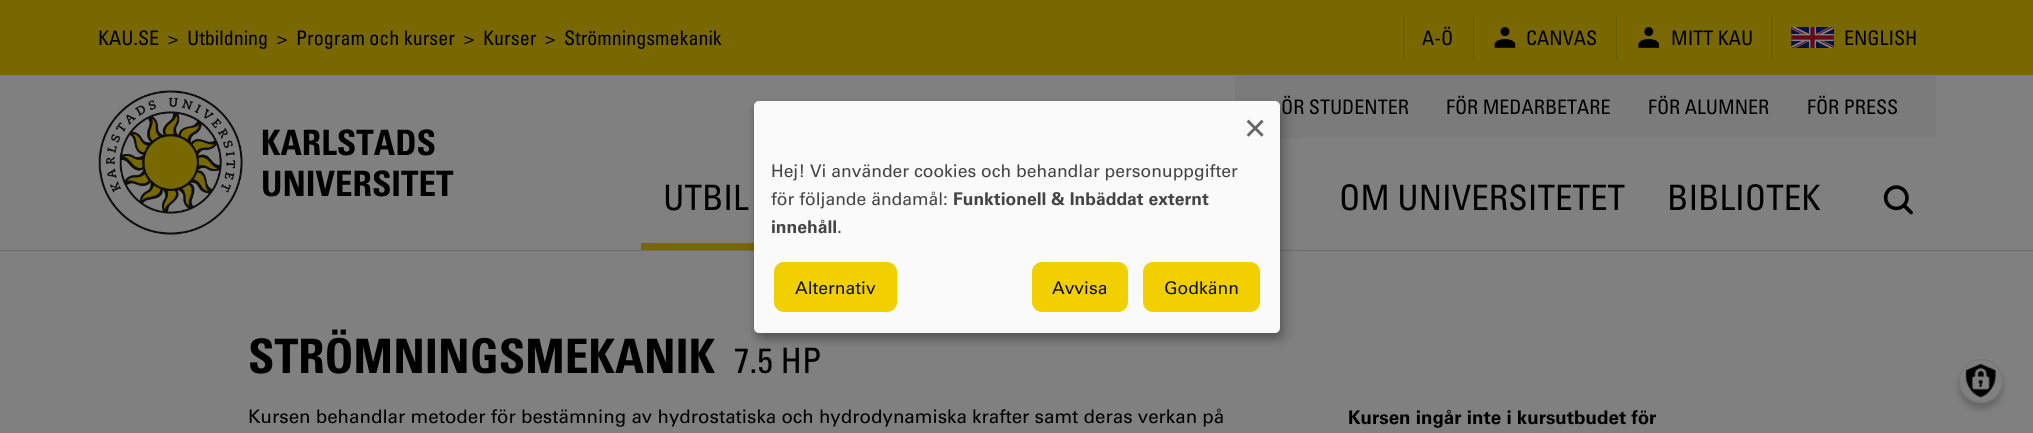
#include <cairo.h>
#include <math.h>
#include <stddef.h>

typedef struct { double x, y; const char *s; } line_t;

static void ink(cairo_t *ctx, unsigned color) {
    cairo_set_source_rgb(ctx, (color >> 16) / 255.0, (color >> 8 & 255) / 255.0, (color & 255) / 255.0);
}

static void round_path(cairo_t *ctx, double x, double y, double w, double h, double r) {
    cairo_new_sub_path(ctx);
    cairo_arc(ctx, x + w - r, y + h - r, r, 0, M_PI / 2);
    cairo_arc(ctx, x + r, y + h - r, r, M_PI / 2, M_PI);
    cairo_arc(ctx, x + r, y + r, r, M_PI, 1.5 * M_PI);
    cairo_arc(ctx, x + w - r, y + r, r, 1.5 * M_PI, 2 * M_PI);
    cairo_close_path(ctx);
}

static void blur_box(cairo_t *ctx, double x, double y, double w, double h, double r, double blur, double alpha) {
    cairo_push_group_with_content(ctx, CAIRO_CONTENT_ALPHA);
    cairo_set_operator(ctx, CAIRO_OPERATOR_SOURCE);
    for (int i = 15; i >= -15 && fmin(w, h) + blur * i / 3 > 0; i -= 2) {
        double e = blur * i / 6;
        cairo_set_source_rgba(ctx, 0, 0, 0, alpha * erfc((i - 1) / 8.5) / 2);
        round_path(ctx, x - e, y - e, w + 2 * e, h + 2 * e, fmax(0, fmin(r + e + blur * .6, fmin(w, h) / 2 + e)));
        cairo_fill(ctx);
    }
    cairo_pattern_t *soft = cairo_pop_group(ctx);
    cairo_mask(ctx, soft);
    cairo_pattern_destroy(soft);
}

static void paste(cairo_t *ctx, const char *path, double x, double y, double w, double h) {
    cairo_surface_t *image = cairo_image_surface_create_from_png(path);
    cairo_save(ctx);
    cairo_set_source_surface(ctx, image, x, y);
    cairo_rectangle(ctx, x, y, w, h);
    cairo_fill(ctx);
    cairo_restore(ctx);
    cairo_surface_destroy(image);
}

int main(void) {
    cairo_surface_t *surface = cairo_image_surface_create(CAIRO_FORMAT_RGB24, 2033, 433);
    cairo_t *ctx = cairo_create(surface);
    cairo_font_options_t *options = cairo_font_options_create();
    cairo_font_options_set_hint_metrics(options, CAIRO_HINT_METRICS_OFF);
    cairo_font_options_set_hint_style(options, CAIRO_HINT_STYLE_NONE);
    cairo_set_font_options(ctx, options);
    cairo_set_miter_limit(ctx, 4);
    ink(ctx, 0x808080);
    cairo_paint(ctx);
    ink(ctx, 0x796800);
    cairo_rectangle(ctx, 0, 0, 2033, 75);
    cairo_fill(ctx);
    cairo_select_font_face(ctx, "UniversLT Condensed", CAIRO_FONT_SLANT_NORMAL, CAIRO_FONT_WEIGHT_NORMAL);
    cairo_set_font_size(ctx, 20);
    ink(ctx, 0x000000);
    {
        static const line_t items[] = {
            {98, 45, "KAU.SE"},
            {168, 45, ">"},
            {187, 45, "Utbildning"},
            {277, 45, ">"},
            {296, 45, "Program och kurser"},
            {464, 45, ">"},
            {483, 45, "Kurser"},
            {545, 45, ">"},
            {564, 45, "Strömningsmekanik"},
        };
        for (size_t i = 0; i < sizeof items / sizeof *items; i++) {
            cairo_move_to(ctx, items[i].x, items[i].y);
            cairo_show_text(ctx, items[i].s);
        }
    }
    ink(ctx, 0x675900);
    cairo_rectangle(ctx, 1403, 16, 1, 43);
    cairo_fill(ctx);
    ink(ctx, 0x000000);
    cairo_move_to(ctx, 1422, 45);
    cairo_show_text(ctx, "A-Ö");
    ink(ctx, 0x675900);
    cairo_rectangle(ctx, 1473, 16, 1, 43);
    cairo_fill(ctx);
    paste(ctx, "media/1.png", 1494, 27, 22, 21);
    ink(ctx, 0x000000);
    cairo_move_to(ctx, 1526, 45);
    cairo_show_text(ctx, "CANVAS");
    ink(ctx, 0x675900);
    cairo_rectangle(ctx, 1616, 16, 1, 43);
    cairo_fill(ctx);
    paste(ctx, "media/2.png", 1638, 27, 21, 21);
    ink(ctx, 0x000000);
    cairo_move_to(ctx, 1671, 45);
    cairo_show_text(ctx, "MITT KAU");
    ink(ctx, 0x675900);
    cairo_rectangle(ctx, 1771, 16, 1, 43);
    cairo_fill(ctx);
    paste(ctx, "media/3.png", 1791, 26, 43, 23);
    ink(ctx, 0x000000);
    cairo_move_to(ctx, 1844, 45);
    cairo_show_text(ctx, "ENGLISH");
    paste(ctx, "media/4.png", 98, 90, 145, 145);
    cairo_select_font_face(ctx, "UniversLT Condensed", CAIRO_FONT_SLANT_NORMAL, CAIRO_FONT_WEIGHT_BOLD);
    cairo_set_font_size(ctx, 35);
    cairo_move_to(ctx, 261, 155);
    cairo_show_text(ctx, "KARLSTADS");
    cairo_move_to(ctx, 261, 196);
    cairo_show_text(ctx, "UNIVERSITET");
    ink(ctx, 0x7B7B7B);
    cairo_rectangle(ctx, 1235, 75, 701, 63);
    cairo_fill(ctx);
    cairo_select_font_face(ctx, "UniversLT Condensed", CAIRO_FONT_SLANT_NORMAL, CAIRO_FONT_WEIGHT_NORMAL);
    cairo_set_font_size(ctx, 20);
    ink(ctx, 0x000000);
    {
        static const line_t items[] = {
            {1281, 114, "ÖR STUDENTER"},
            {1446, 114, "FÖR MEDARBETARE"},
            {1648, 114, "FÖR ALUMNER"},
            {1807, 114, "FÖR PRESS"},
        };
        for (size_t i = 0; i < sizeof items / sizeof *items; i++) {
            cairo_move_to(ctx, items[i].x, items[i].y);
            cairo_show_text(ctx, items[i].s);
        }
    }
    ink(ctx, 0x796800);
    cairo_rectangle(ctx, 641, 243, 113, 7);
    cairo_fill(ctx);
    cairo_set_font_size(ctx, 35);
    ink(ctx, 0x000000);
    {
        static const line_t items[] = {
            {663, 210, "UTBIL"},
            {1339, 210, "OM UNIVERSITETET"},
            {1667, 210, "BIBLIOTEK"},
        };
        for (size_t i = 0; i < sizeof items / sizeof *items; i++) {
            cairo_move_to(ctx, items[i].x, items[i].y);
            cairo_show_text(ctx, items[i].s);
        }
    }
    paste(ctx, "media/5.png", 1883, 185, 30, 30);
    ink(ctx, 0x6D6D6D);
    cairo_rectangle(ctx, 0, 250, 2033, 1);
    cairo_fill(ctx);
    cairo_select_font_face(ctx, "UniversLT Condensed", CAIRO_FONT_SLANT_NORMAL, CAIRO_FONT_WEIGHT_BOLD);
    cairo_set_font_size(ctx, 47.5);
    ink(ctx, 0x000000);
    cairo_move_to(ctx, 248, 373);
    cairo_show_text(ctx, "STRÖMNINGSMEKANIK");
    cairo_select_font_face(ctx, "UniversLT Condensed", CAIRO_FONT_SLANT_NORMAL, CAIRO_FONT_WEIGHT_NORMAL);
    cairo_set_font_size(ctx, 35);
    cairo_move_to(ctx, 734, 373);
    cairo_show_text(ctx, "7.5 HP");
    cairo_select_font_face(ctx, "Univers", CAIRO_FONT_SLANT_NORMAL, CAIRO_FONT_WEIGHT_NORMAL);
    cairo_set_font_size(ctx, 18.75);
    cairo_move_to(ctx, 248, 423);
    cairo_show_text(ctx, "Kursen behandlar metoder för bestämning av hydrostatiska och hydrodynamiska krafter samt deras verkan på");
    cairo_select_font_face(ctx, "Univers", CAIRO_FONT_SLANT_NORMAL, CAIRO_FONT_WEIGHT_BOLD);
    cairo_move_to(ctx, 1348, 424);
    cairo_show_text(ctx, "Kursen ingår inte i kursutbudet för");
    ink(ctx, 0x000000);
    blur_box(ctx, 760, 108, 526, 231, 5, 6, 0.19);
    blur_box(ctx, 754, 106, 526, 232, 5, 4, 0.2);
    ink(ctx, 0xFAFAFA);
    round_path(ctx, 754, 101, 526, 232, 5);
    cairo_fill(ctx);
    cairo_select_font_face(ctx, "Univers", CAIRO_FONT_SLANT_NORMAL, CAIRO_FONT_WEIGHT_NORMAL);
    cairo_set_font_size(ctx, 35);
    ink(ctx, 0x666666);
    cairo_move_to(ctx, 1245, 137);
    cairo_show_text(ctx, "×");
    cairo_set_font_size(ctx, 17.5);
    ink(ctx, 0x444444);
    cairo_move_to(ctx, 771, 177);
    cairo_show_text(ctx, "Hej! Vi använder cookies och behandlar personuppgifter");
    cairo_move_to(ctx, 771, 205);
    cairo_show_text(ctx, "för följande ändamål:");
    cairo_select_font_face(ctx, "Univers", CAIRO_FONT_SLANT_NORMAL, CAIRO_FONT_WEIGHT_BOLD);
    cairo_move_to(ctx, 953, 205);
    cairo_show_text(ctx, "Funktionell & Inbäddat externt");
    cairo_move_to(ctx, 771, 233);
    cairo_show_text(ctx, "innehåll");
    cairo_select_font_face(ctx, "Univers", CAIRO_FONT_SLANT_NORMAL, CAIRO_FONT_WEIGHT_NORMAL);
    cairo_move_to(ctx, 837, 233);
    cairo_show_text(ctx, ".");
    ink(ctx, 0xF2D000);
    round_path(ctx, 772.5, 260.5, 126, 53, 11.5);
    cairo_fill_preserve(ctx);
    ink(ctx, 0xFAFAFA);
    cairo_set_line_width(ctx, 3);
    cairo_stroke(ctx);
    ink(ctx, 0x111111);
    cairo_move_to(ctx, 795, 294);
    cairo_show_text(ctx, "Alternativ");
    ink(ctx, 0xF2D000);
    round_path(ctx, 1030.5, 260.5, 99, 53, 11.5);
    cairo_fill_preserve(ctx);
    ink(ctx, 0xFAFAFA);
    cairo_stroke(ctx);
    ink(ctx, 0x111111);
    cairo_move_to(ctx, 1052, 294);
    cairo_show_text(ctx, "Avvisa");
    ink(ctx, 0xF2D000);
    round_path(ctx, 1141.5, 260.5, 120, 53, 11.5);
    cairo_fill_preserve(ctx);
    ink(ctx, 0xFAFAFA);
    cairo_stroke(ctx);
    ink(ctx, 0x111111);
    cairo_move_to(ctx, 1164, 294);
    cairo_show_text(ctx, "Godkänn");
    ink(ctx, 0x000000);
    blur_box(ctx, 1959, 365, 44, 44, 22, 3, 0.2);
    ink(ctx, 0x808080);
    cairo_arc(ctx, 1981, 381, 22, 0, 2 * M_PI);
    cairo_fill(ctx);
    paste(ctx, "media/6.png", 1965, 363, 31, 35);
    cairo_arc(ctx, 1981, 381, 21.5, 0, 2 * M_PI);
    ink(ctx, 0x757575);
    cairo_set_line_width(ctx, 1);
    cairo_stroke(ctx);
    cairo_surface_write_to_png(surface, "image.png");
    cairo_font_options_destroy(options);
    cairo_destroy(ctx);
    cairo_surface_destroy(surface);
    return 0;
}
